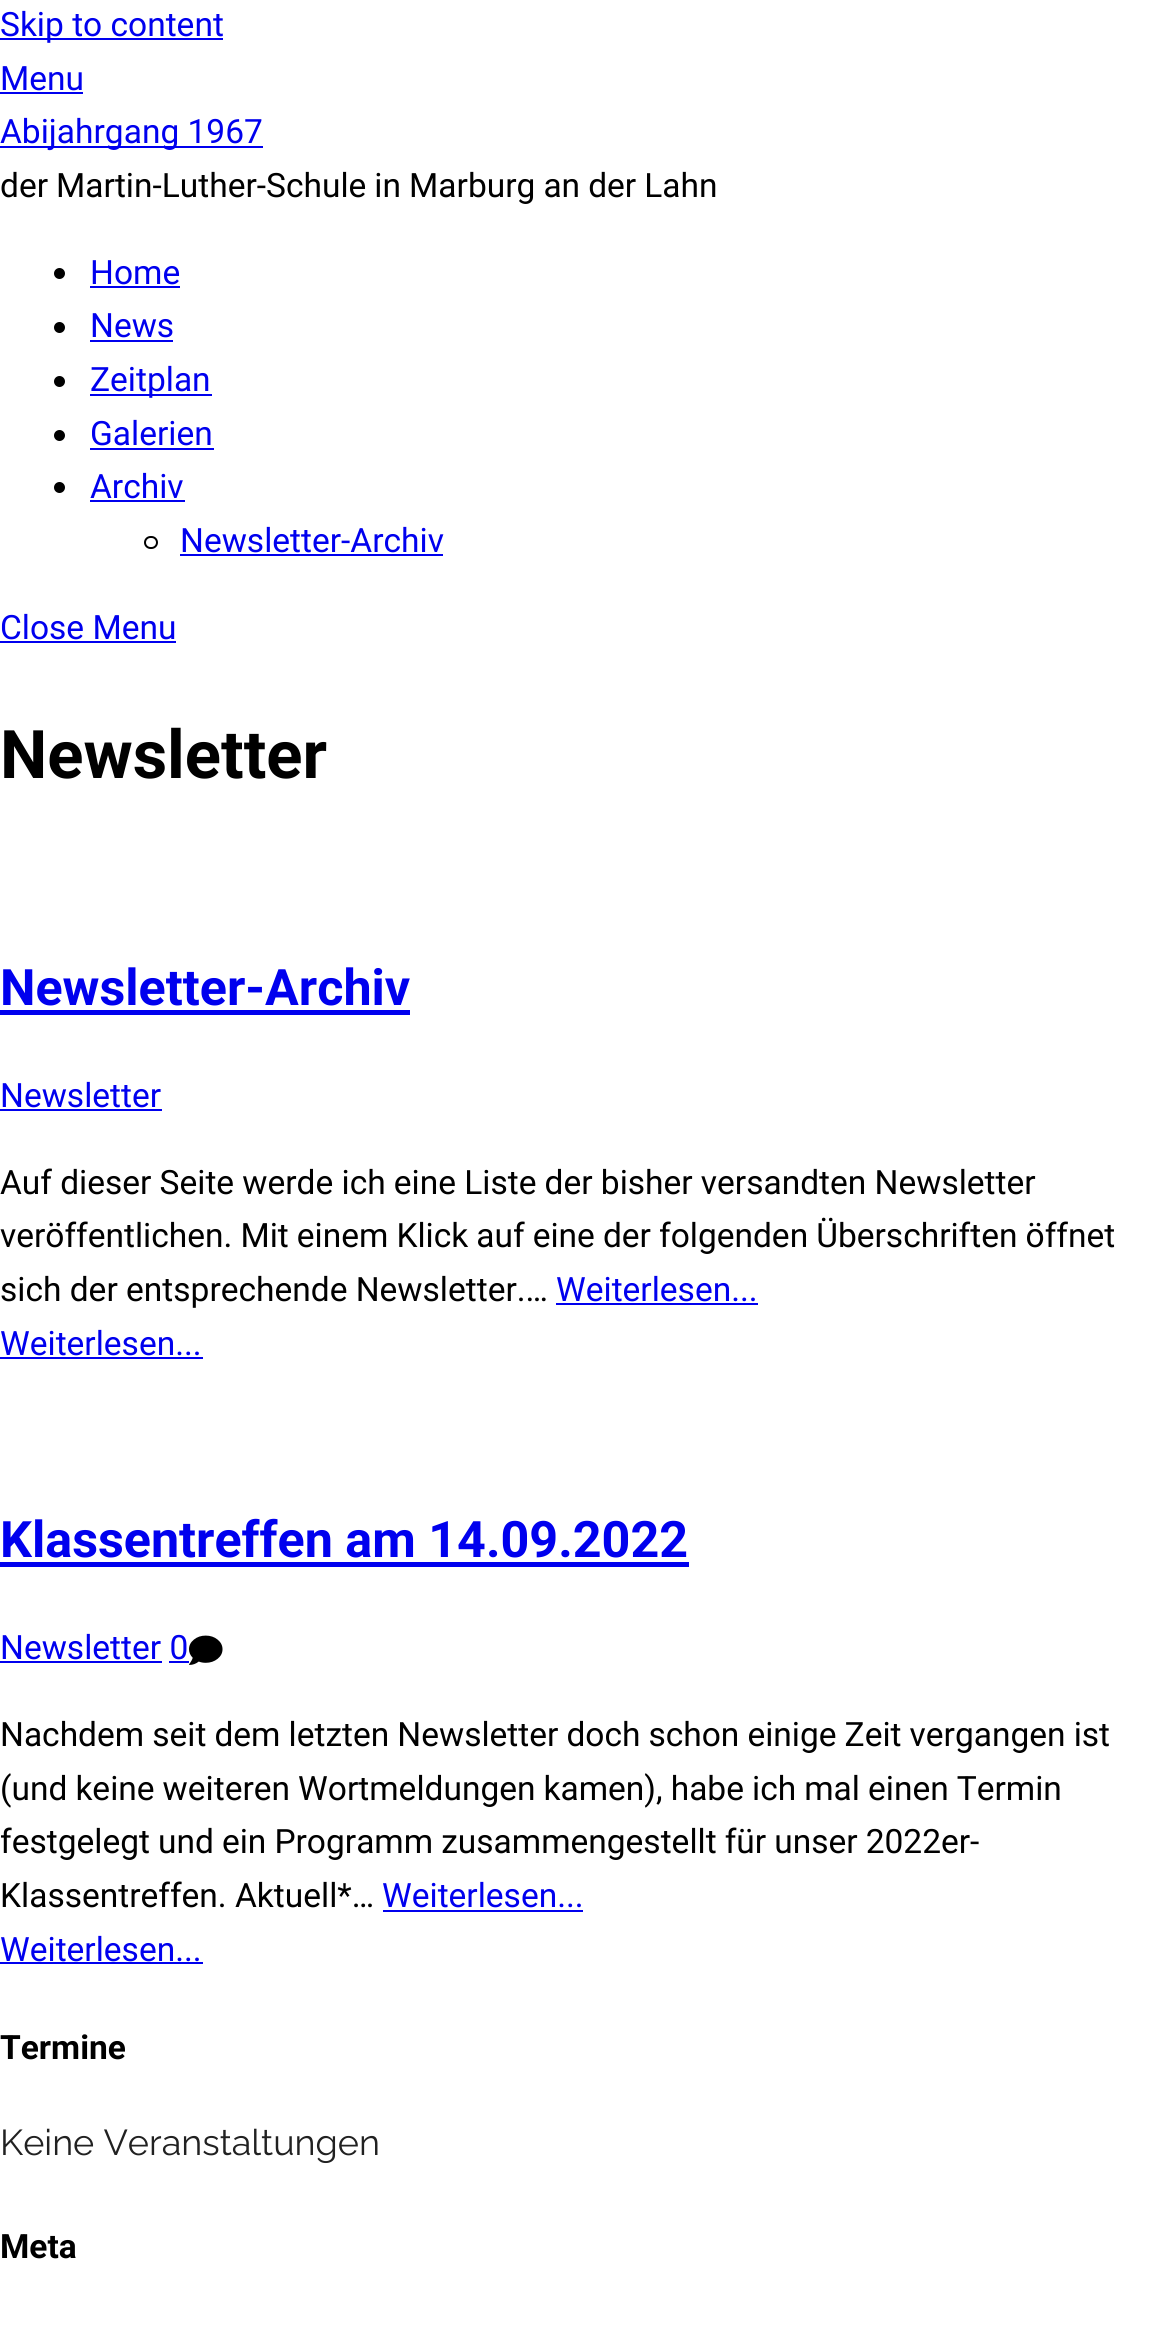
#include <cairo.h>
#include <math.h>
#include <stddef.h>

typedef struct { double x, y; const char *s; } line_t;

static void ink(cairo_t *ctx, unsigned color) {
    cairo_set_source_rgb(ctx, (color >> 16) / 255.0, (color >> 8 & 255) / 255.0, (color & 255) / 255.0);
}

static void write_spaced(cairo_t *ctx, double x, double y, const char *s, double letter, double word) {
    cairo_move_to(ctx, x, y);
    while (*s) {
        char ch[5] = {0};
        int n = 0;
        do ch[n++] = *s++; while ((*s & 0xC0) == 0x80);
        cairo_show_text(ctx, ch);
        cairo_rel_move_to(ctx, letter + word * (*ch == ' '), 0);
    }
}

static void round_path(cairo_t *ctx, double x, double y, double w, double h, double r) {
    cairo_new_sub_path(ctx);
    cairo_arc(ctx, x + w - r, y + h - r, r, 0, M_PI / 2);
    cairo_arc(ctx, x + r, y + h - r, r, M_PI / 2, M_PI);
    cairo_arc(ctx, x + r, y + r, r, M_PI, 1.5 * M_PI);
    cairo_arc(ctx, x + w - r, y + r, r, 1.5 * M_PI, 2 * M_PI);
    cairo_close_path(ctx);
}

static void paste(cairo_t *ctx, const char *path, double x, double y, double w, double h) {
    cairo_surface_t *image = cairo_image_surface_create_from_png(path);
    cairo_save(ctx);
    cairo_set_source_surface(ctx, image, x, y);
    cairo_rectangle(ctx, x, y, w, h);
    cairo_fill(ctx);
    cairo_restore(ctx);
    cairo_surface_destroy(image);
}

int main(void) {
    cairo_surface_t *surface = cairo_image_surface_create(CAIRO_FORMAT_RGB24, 1149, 2336);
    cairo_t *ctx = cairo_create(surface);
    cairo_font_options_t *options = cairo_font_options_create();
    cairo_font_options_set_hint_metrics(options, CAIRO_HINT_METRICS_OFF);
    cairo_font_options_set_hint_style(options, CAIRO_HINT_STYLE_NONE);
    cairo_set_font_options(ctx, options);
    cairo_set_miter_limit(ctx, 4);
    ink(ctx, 0xFFFFFF);
    cairo_paint(ctx);
    ink(ctx, 0x0000EE);
    cairo_rectangle(ctx, 0, 38, 223, 2);
    cairo_fill(ctx);
    cairo_select_font_face(ctx, "Roboto", CAIRO_FONT_SLANT_NORMAL, CAIRO_FONT_WEIGHT_NORMAL);
    cairo_set_font_size(ctx, 33.5);
    cairo_move_to(ctx, 0, 36);
    cairo_show_text(ctx, "Skip to content");
    cairo_move_to(ctx, 0, 90);
    cairo_show_text(ctx, "Menu");
    cairo_rectangle(ctx, 0, 92, 83, 2);
    cairo_fill(ctx);
    cairo_rectangle(ctx, 0, 146, 263, 2);
    cairo_fill(ctx);
    cairo_move_to(ctx, 0, 143);
    cairo_show_text(ctx, "Abijahrgang 1967");
    ink(ctx, 0x000000);
    write_spaced(ctx, 0, 197, "der Martin-Luther-Schule in Marburg an der Lahn", 0, -0.25);
    cairo_new_path(ctx);
    cairo_arc(ctx, 59.5, 273.5, 5.5, 0, 2 * M_PI);
    cairo_fill(ctx);
    ink(ctx, 0x0000EE);
    cairo_move_to(ctx, 90, 284);
    cairo_show_text(ctx, "Home");
    cairo_rectangle(ctx, 90, 286, 90, 2);
    cairo_fill(ctx);
    ink(ctx, 0x000000);
    cairo_arc(ctx, 59.5, 327.5, 5.5, 0, 2 * M_PI);
    cairo_fill(ctx);
    ink(ctx, 0x0000EE);
    cairo_move_to(ctx, 90, 337);
    cairo_show_text(ctx, "News");
    cairo_rectangle(ctx, 90, 340, 83, 2);
    cairo_fill(ctx);
    ink(ctx, 0x000000);
    cairo_arc(ctx, 59.5, 381.5, 5.5, 0, 2 * M_PI);
    cairo_fill(ctx);
    ink(ctx, 0x0000EE);
    cairo_rectangle(ctx, 90, 394, 122, 2);
    cairo_fill(ctx);
    cairo_move_to(ctx, 90, 391);
    cairo_show_text(ctx, "Zeitplan");
    ink(ctx, 0x000000);
    cairo_new_path(ctx);
    cairo_arc(ctx, 59.5, 435.5, 5.5, 0, 2 * M_PI);
    cairo_fill(ctx);
    ink(ctx, 0x0000EE);
    cairo_move_to(ctx, 90, 445);
    cairo_show_text(ctx, "Galerien");
    cairo_rectangle(ctx, 90, 448, 124, 2);
    cairo_fill(ctx);
    ink(ctx, 0x000000);
    cairo_arc(ctx, 59.5, 487.5, 5.5, 0, 2 * M_PI);
    cairo_fill(ctx);
    ink(ctx, 0x0000EE);
    cairo_move_to(ctx, 90, 498);
    cairo_show_text(ctx, "Archiv");
    cairo_rectangle(ctx, 90, 500, 95, 2);
    cairo_fill(ctx);
    round_path(ctx, 145, 537, 12, 11, 5.5);
    ink(ctx, 0x000000);
    cairo_stroke(ctx);
    ink(ctx, 0x0000EE);
    cairo_move_to(ctx, 180, 552);
    cairo_show_text(ctx, "Newsletter-Archiv");
    cairo_rectangle(ctx, 180, 554, 263, 2);
    cairo_fill(ctx);
    cairo_move_to(ctx, 0, 639);
    cairo_show_text(ctx, "Close Menu");
    cairo_rectangle(ctx, 0, 641, 176, 2);
    cairo_fill(ctx);
    cairo_select_font_face(ctx, "Roboto", CAIRO_FONT_SLANT_NORMAL, CAIRO_FONT_WEIGHT_BOLD);
    cairo_set_font_size(ctx, 67);
    ink(ctx, 0x000000);
    cairo_move_to(ctx, 0, 778);
    cairo_show_text(ctx, "Newsletter");
    cairo_set_font_size(ctx, 50.25);
    ink(ctx, 0x0000EE);
    cairo_move_to(ctx, 0, 1005);
    cairo_show_text(ctx, "Newsletter-Archiv");
    cairo_rectangle(ctx, 0, 1010, 410, 5);
    cairo_fill(ctx);
    cairo_select_font_face(ctx, "Roboto", CAIRO_FONT_SLANT_NORMAL, CAIRO_FONT_WEIGHT_NORMAL);
    cairo_set_font_size(ctx, 33.5);
    cairo_move_to(ctx, 0, 1107);
    cairo_show_text(ctx, "Newsletter");
    cairo_rectangle(ctx, 0, 1109, 162, 2);
    cairo_fill(ctx);
    ink(ctx, 0x000000);
    write_spaced(ctx, 0, 1194, "Auf dieser Seite werde ich eine Liste der bisher versandten Newsletter", 0, -0.1);
    write_spaced(ctx, 0, 1247, "veröffentlichen. Mit einem Klick auf eine der folgenden Überschriften öffnet", 0, -0.25);
    cairo_move_to(ctx, 0, 1301);
    cairo_show_text(ctx, "sich der entsprechende Newsletter.…");
    ink(ctx, 0x0000EE);
    cairo_move_to(ctx, 556, 1301);
    cairo_show_text(ctx, "Weiterlesen...");
    cairo_rectangle(ctx, 556, 1303, 202, 2);
    cairo_fill(ctx);
    cairo_move_to(ctx, 0, 1355);
    cairo_show_text(ctx, "Weiterlesen...");
    cairo_rectangle(ctx, 0, 1357, 203, 2);
    cairo_fill(ctx);
    cairo_select_font_face(ctx, "Roboto", CAIRO_FONT_SLANT_NORMAL, CAIRO_FONT_WEIGHT_BOLD);
    cairo_set_font_size(ctx, 50.25);
    cairo_move_to(ctx, 0, 1557);
    cairo_show_text(ctx, "Klassentreffen am 14.09.2022");
    cairo_rectangle(ctx, 0, 1562, 689, 5);
    cairo_fill(ctx);
    cairo_select_font_face(ctx, "Roboto", CAIRO_FONT_SLANT_NORMAL, CAIRO_FONT_WEIGHT_NORMAL);
    cairo_set_font_size(ctx, 33.5);
    cairo_move_to(ctx, 0, 1659);
    cairo_show_text(ctx, "Newsletter 0");
    cairo_rectangle(ctx, 0, 1661, 162, 2);
    cairo_fill(ctx);
    cairo_rectangle(ctx, 169, 1661, 20, 2);
    cairo_fill(ctx);
    paste(ctx, "media/1.png", 189, 1635, 34, 30);
    ink(ctx, 0x000000);
    {
        static const line_t items[] = {
            {0, 1746, "Nachdem seit dem letzten Newsletter doch schon einige Zeit vergangen ist"},
            {0, 1800, "(und keine weiteren Wortmeldungen kamen), habe ich mal einen Termin"},
            {0, 1853, "festgelegt und ein Programm zusammengestellt für unser 2022er-"},
        };
        for (size_t i = 0; i < sizeof items / sizeof *items; i++) {
            write_spaced(ctx, items[i].x, items[i].y, items[i].s, 0, -0.25);
        }
    }
    cairo_move_to(ctx, 0, 1907);
    cairo_show_text(ctx, "Klassentreffen. Aktuell*…");
    ink(ctx, 0x0000EE);
    cairo_move_to(ctx, 382, 1907);
    cairo_show_text(ctx, "Weiterlesen...");
    cairo_rectangle(ctx, 383, 1910, 200, 2);
    cairo_fill(ctx);
    cairo_move_to(ctx, 0, 1961);
    cairo_show_text(ctx, "Weiterlesen...");
    cairo_rectangle(ctx, 0, 1962, 203, 2);
    cairo_fill(ctx);
    cairo_select_font_face(ctx, "Roboto", CAIRO_FONT_SLANT_NORMAL, CAIRO_FONT_WEIGHT_BOLD);
    ink(ctx, 0x000000);
    cairo_move_to(ctx, 0, 2059);
    cairo_show_text(ctx, "Termine");
    cairo_select_font_face(ctx, "Raleway", CAIRO_FONT_SLANT_NORMAL, CAIRO_FONT_WEIGHT_NORMAL);
    cairo_set_font_size(ctx, 36);
    ink(ctx, 0x212121);
    cairo_move_to(ctx, 0, 2155);
    cairo_show_text(ctx, "Keine Veranstaltungen");
    cairo_select_font_face(ctx, "Roboto", CAIRO_FONT_SLANT_NORMAL, CAIRO_FONT_WEIGHT_BOLD);
    cairo_set_font_size(ctx, 33.5);
    ink(ctx, 0x000000);
    cairo_move_to(ctx, 0, 2258);
    cairo_show_text(ctx, "Meta");
    cairo_surface_write_to_png(surface, "image.png");
    cairo_font_options_destroy(options);
    cairo_destroy(ctx);
    cairo_surface_destroy(surface);
    return 0;
}
